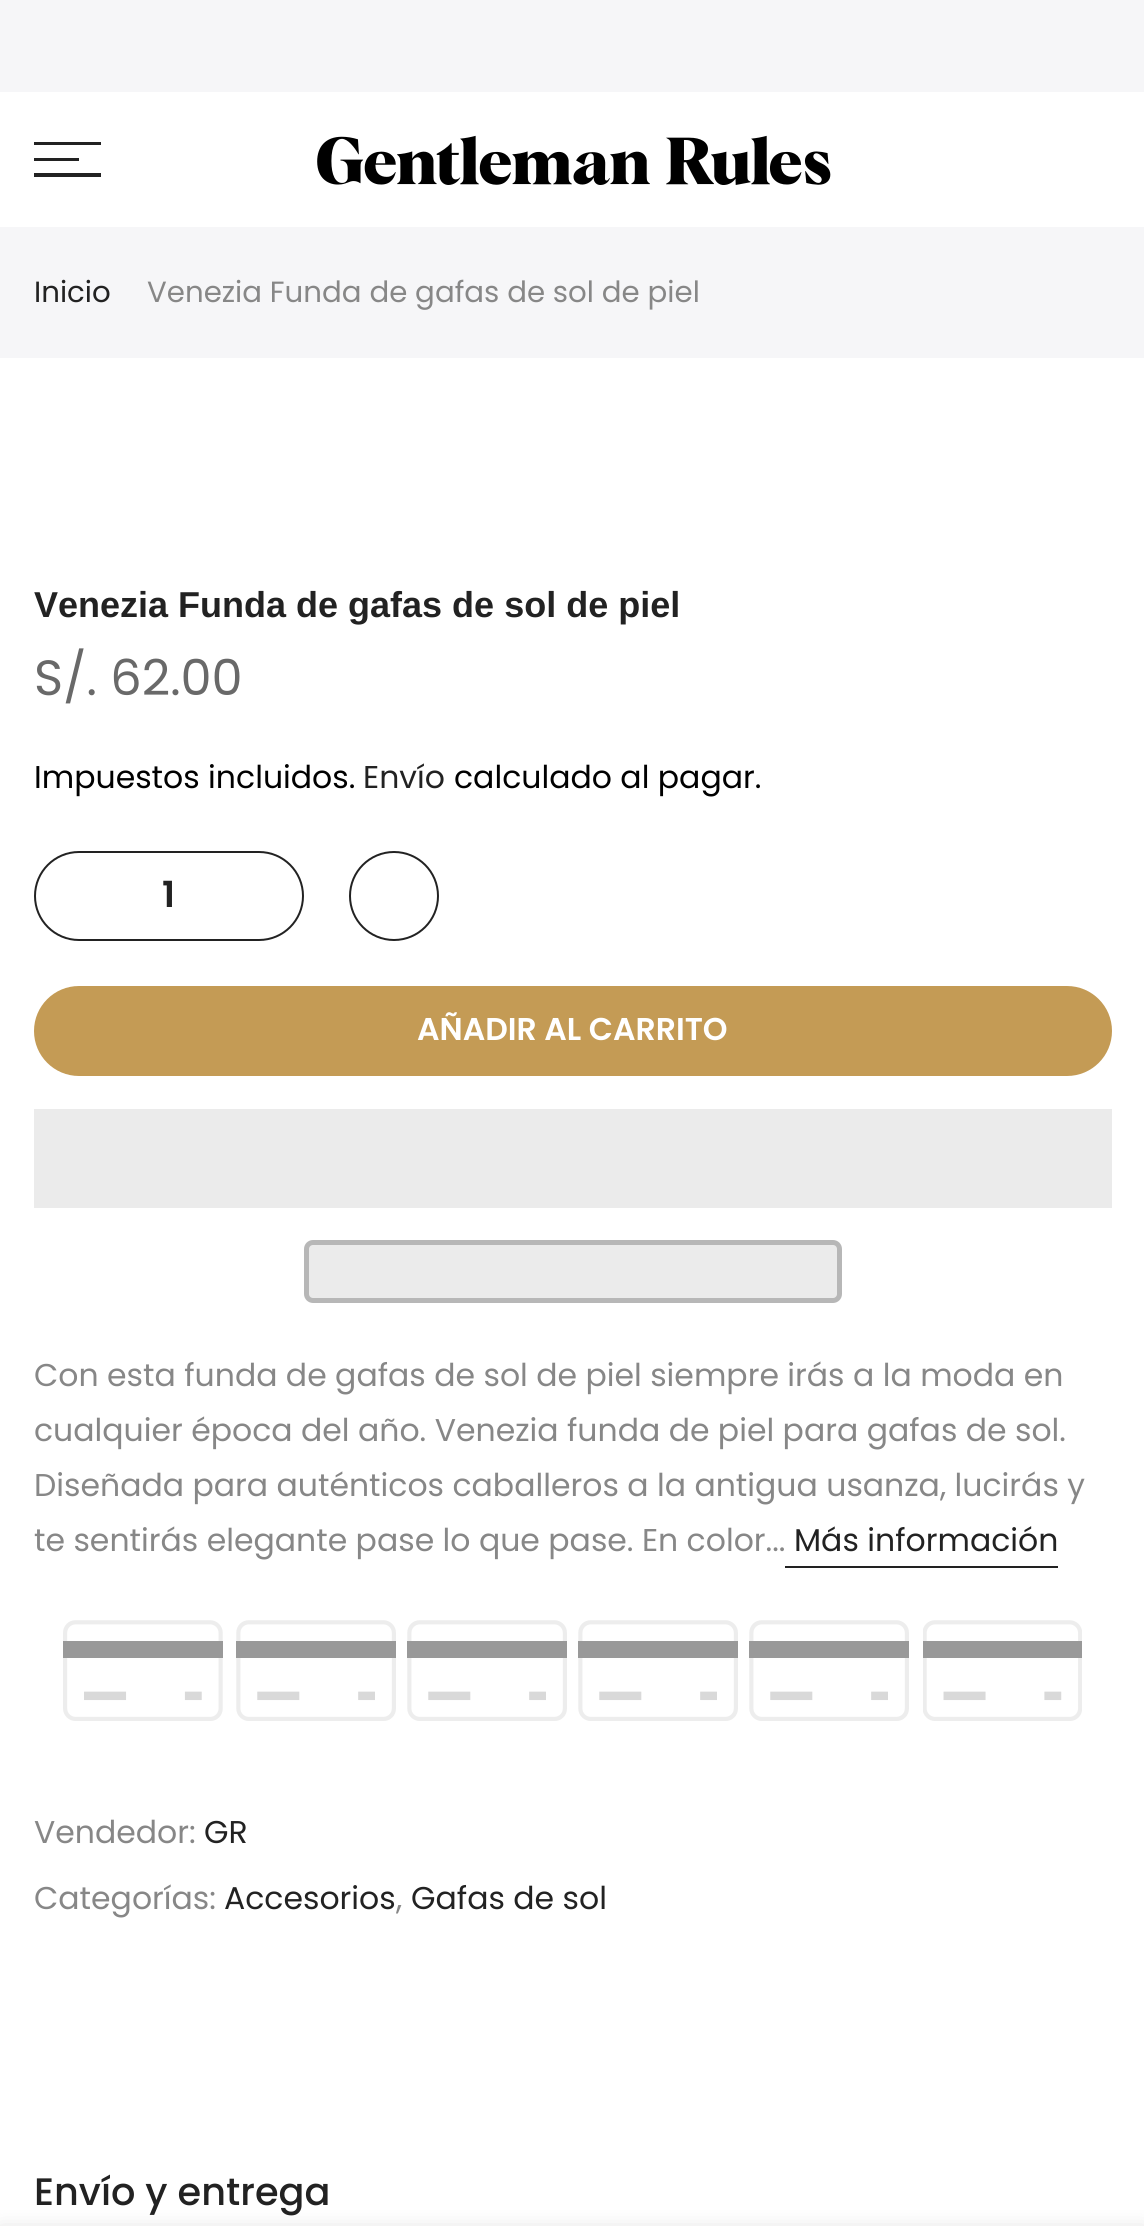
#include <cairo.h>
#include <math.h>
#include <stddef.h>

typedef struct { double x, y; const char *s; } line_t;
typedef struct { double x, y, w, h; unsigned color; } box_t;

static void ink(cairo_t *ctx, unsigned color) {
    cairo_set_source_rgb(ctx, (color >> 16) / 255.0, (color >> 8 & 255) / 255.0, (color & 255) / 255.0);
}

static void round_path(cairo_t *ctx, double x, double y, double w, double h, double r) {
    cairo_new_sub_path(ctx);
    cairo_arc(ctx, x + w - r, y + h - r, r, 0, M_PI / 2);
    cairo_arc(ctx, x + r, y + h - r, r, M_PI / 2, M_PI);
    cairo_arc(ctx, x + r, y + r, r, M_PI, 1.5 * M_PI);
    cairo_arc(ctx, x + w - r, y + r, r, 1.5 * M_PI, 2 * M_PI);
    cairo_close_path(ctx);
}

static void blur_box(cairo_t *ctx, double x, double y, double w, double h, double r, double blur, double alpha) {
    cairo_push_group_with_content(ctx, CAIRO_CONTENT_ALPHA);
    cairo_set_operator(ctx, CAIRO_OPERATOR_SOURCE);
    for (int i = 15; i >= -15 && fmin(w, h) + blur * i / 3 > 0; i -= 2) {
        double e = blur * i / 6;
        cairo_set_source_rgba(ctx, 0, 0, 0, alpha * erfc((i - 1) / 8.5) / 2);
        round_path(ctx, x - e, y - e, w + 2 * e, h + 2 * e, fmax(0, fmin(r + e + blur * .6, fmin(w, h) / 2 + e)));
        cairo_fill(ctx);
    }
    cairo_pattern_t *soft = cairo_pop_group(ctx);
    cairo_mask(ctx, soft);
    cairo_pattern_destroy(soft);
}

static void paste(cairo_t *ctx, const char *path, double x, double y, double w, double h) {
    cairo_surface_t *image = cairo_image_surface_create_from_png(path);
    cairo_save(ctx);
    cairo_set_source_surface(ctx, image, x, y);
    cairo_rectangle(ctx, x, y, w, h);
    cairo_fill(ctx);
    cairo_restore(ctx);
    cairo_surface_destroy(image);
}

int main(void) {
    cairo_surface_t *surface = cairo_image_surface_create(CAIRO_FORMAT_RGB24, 1144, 2226);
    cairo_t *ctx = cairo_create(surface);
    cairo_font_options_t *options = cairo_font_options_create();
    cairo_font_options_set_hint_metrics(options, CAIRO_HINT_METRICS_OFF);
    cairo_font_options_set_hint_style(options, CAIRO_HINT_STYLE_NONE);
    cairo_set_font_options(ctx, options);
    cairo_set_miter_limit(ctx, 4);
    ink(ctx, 0xFFFFFF);
    cairo_paint(ctx);
    {
        static const box_t items[] = {
            {0, 0, 1144, 92, 0xF6F6F8},
            {34, 142, 67, 3, 0x222222},
            {34, 158, 45, 3, 0x222222},
            {34, 173, 67, 4, 0x222222},
        };
        for (size_t i = 0; i < sizeof items / sizeof *items; i++) {
            ink(ctx, items[i].color);
            cairo_rectangle(ctx, items[i].x, items[i].y, items[i].w, items[i].h);
            cairo_fill(ctx);
        }
    }
    paste(ctx, "media/1.png", 317, 135, 514, 50);
    ink(ctx, 0xF6F6F8);
    cairo_rectangle(ctx, 0, 227, 1144, 131);
    cairo_fill(ctx);
    cairo_select_font_face(ctx, "Poppins", CAIRO_FONT_SLANT_NORMAL, CAIRO_FONT_WEIGHT_NORMAL);
    cairo_set_font_size(ctx, 29.25);
    ink(ctx, 0x222222);
    cairo_move_to(ctx, 34, 302);
    cairo_show_text(ctx, "Inicio");
    ink(ctx, 0x878787);
    cairo_move_to(ctx, 147, 302);
    cairo_show_text(ctx, "Venezia Funda de gafas de sol de piel");
    cairo_select_font_face(ctx, "Liberation Sans", CAIRO_FONT_SLANT_NORMAL, CAIRO_FONT_WEIGHT_BOLD);
    cairo_set_font_size(ctx, 36);
    ink(ctx, 0x222222);
    cairo_move_to(ctx, 34, 617);
    cairo_show_text(ctx, "Venezia Funda de gafas de sol de piel");
    cairo_select_font_face(ctx, "Poppins", CAIRO_FONT_SLANT_NORMAL, CAIRO_FONT_WEIGHT_NORMAL);
    cairo_set_font_size(ctx, 49.5);
    ink(ctx, 0x696969);
    cairo_move_to(ctx, 34, 695);
    cairo_show_text(ctx, "S/. 62.00");
    cairo_set_font_size(ctx, 31.5);
    ink(ctx, 0x000000);
    cairo_move_to(ctx, 34, 788);
    cairo_show_text(ctx, "Impuestos incluidos.");
    ink(ctx, 0x222222);
    cairo_move_to(ctx, 363, 788);
    cairo_show_text(ctx, "Envío");
    ink(ctx, 0x000000);
    cairo_move_to(ctx, 454, 788);
    cairo_show_text(ctx, "calculado al pagar.");
    round_path(ctx, 35, 852, 268, 88, 44);
    ink(ctx, 0x222222);
    cairo_stroke(ctx);
    cairo_select_font_face(ctx, "Poppins SemiBold", CAIRO_FONT_SLANT_NORMAL, CAIRO_FONT_WEIGHT_NORMAL);
    cairo_set_font_size(ctx, 36);
    cairo_move_to(ctx, 162, 907);
    cairo_show_text(ctx, "1");
    cairo_new_path(ctx);
    cairo_arc(ctx, 394, 896, 44, 0, 2 * M_PI);
    cairo_stroke(ctx);
    ink(ctx, 0xC49B55);
    round_path(ctx, 34, 986, 1078, 90, 45);
    cairo_fill(ctx);
    cairo_set_font_size(ctx, 31.5);
    ink(ctx, 0xFFFFFF);
    cairo_move_to(ctx, 417, 1040);
    cairo_show_text(ctx, "AÑADIR AL CARRITO");
    ink(ctx, 0xEBEBEB);
    cairo_rectangle(ctx, 34, 1109, 1078, 99);
    cairo_fill(ctx);
    round_path(ctx, 306.5, 1242.5, 533, 58, 6.5);
    cairo_fill_preserve(ctx);
    ink(ctx, 0xB7B7B7);
    cairo_set_line_width(ctx, 5);
    cairo_stroke(ctx);
    cairo_select_font_face(ctx, "Poppins", CAIRO_FONT_SLANT_NORMAL, CAIRO_FONT_WEIGHT_NORMAL);
    ink(ctx, 0x878787);
    {
        static const line_t items[] = {
            {34, 1386, "Con esta funda de gafas de sol de piel siempre irás a la moda en"},
            {34, 1441, "cualquier época del año. Venezia funda de piel para gafas de sol."},
            {34, 1496, "Diseñada para auténticos caballeros a la antigua usanza, lucirás y"},
            {34, 1551, "te sentirás elegante pase lo que pase. En color..."},
        };
        for (size_t i = 0; i < sizeof items / sizeof *items; i++) {
            cairo_move_to(ctx, items[i].x, items[i].y);
            cairo_show_text(ctx, items[i].s);
        }
    }
    ink(ctx, 0x222222);
    cairo_move_to(ctx, 794, 1551);
    cairo_show_text(ctx, "Más información");
    cairo_rectangle(ctx, 785, 1566, 273, 2);
    cairo_fill(ctx);
    paste(ctx, "media/2.png", 63, 1620, 160, 101);
    paste(ctx, "media/3.png", 236, 1620, 160, 101);
    paste(ctx, "media/3.png", 407, 1620, 160, 101);
    paste(ctx, "media/3.png", 578, 1620, 160, 101);
    paste(ctx, "media/3.png", 749, 1620, 160, 101);
    paste(ctx, "media/4.png", 923, 1620, 159, 101);
    ink(ctx, 0x878787);
    cairo_move_to(ctx, 34, 1843);
    cairo_show_text(ctx, "Vendedor:");
    ink(ctx, 0x222222);
    cairo_move_to(ctx, 204, 1843);
    cairo_show_text(ctx, "GR");
    ink(ctx, 0x878787);
    cairo_move_to(ctx, 34, 1909);
    cairo_show_text(ctx, "Categorías:");
    ink(ctx, 0x222222);
    cairo_move_to(ctx, 224, 1909);
    cairo_show_text(ctx, "Accesorios");
    ink(ctx, 0x878787);
    cairo_move_to(ctx, 396, 1909);
    cairo_show_text(ctx, ",");
    ink(ctx, 0x222222);
    cairo_move_to(ctx, 411, 1909);
    cairo_show_text(ctx, "Gafas de sol");
    cairo_select_font_face(ctx, "Poppins Medium", CAIRO_FONT_SLANT_NORMAL, CAIRO_FONT_WEIGHT_NORMAL);
    cairo_set_font_size(ctx, 38.25);
    cairo_move_to(ctx, 34, 2205);
    cairo_show_text(ctx, "Envío y entrega");
    ink(ctx, 0x000000);
    blur_box(ctx, 0, 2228, 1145, 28, 0, 10, 0.12);
    cairo_surface_write_to_png(surface, "image.png");
    cairo_font_options_destroy(options);
    cairo_destroy(ctx);
    cairo_surface_destroy(surface);
    return 0;
}
